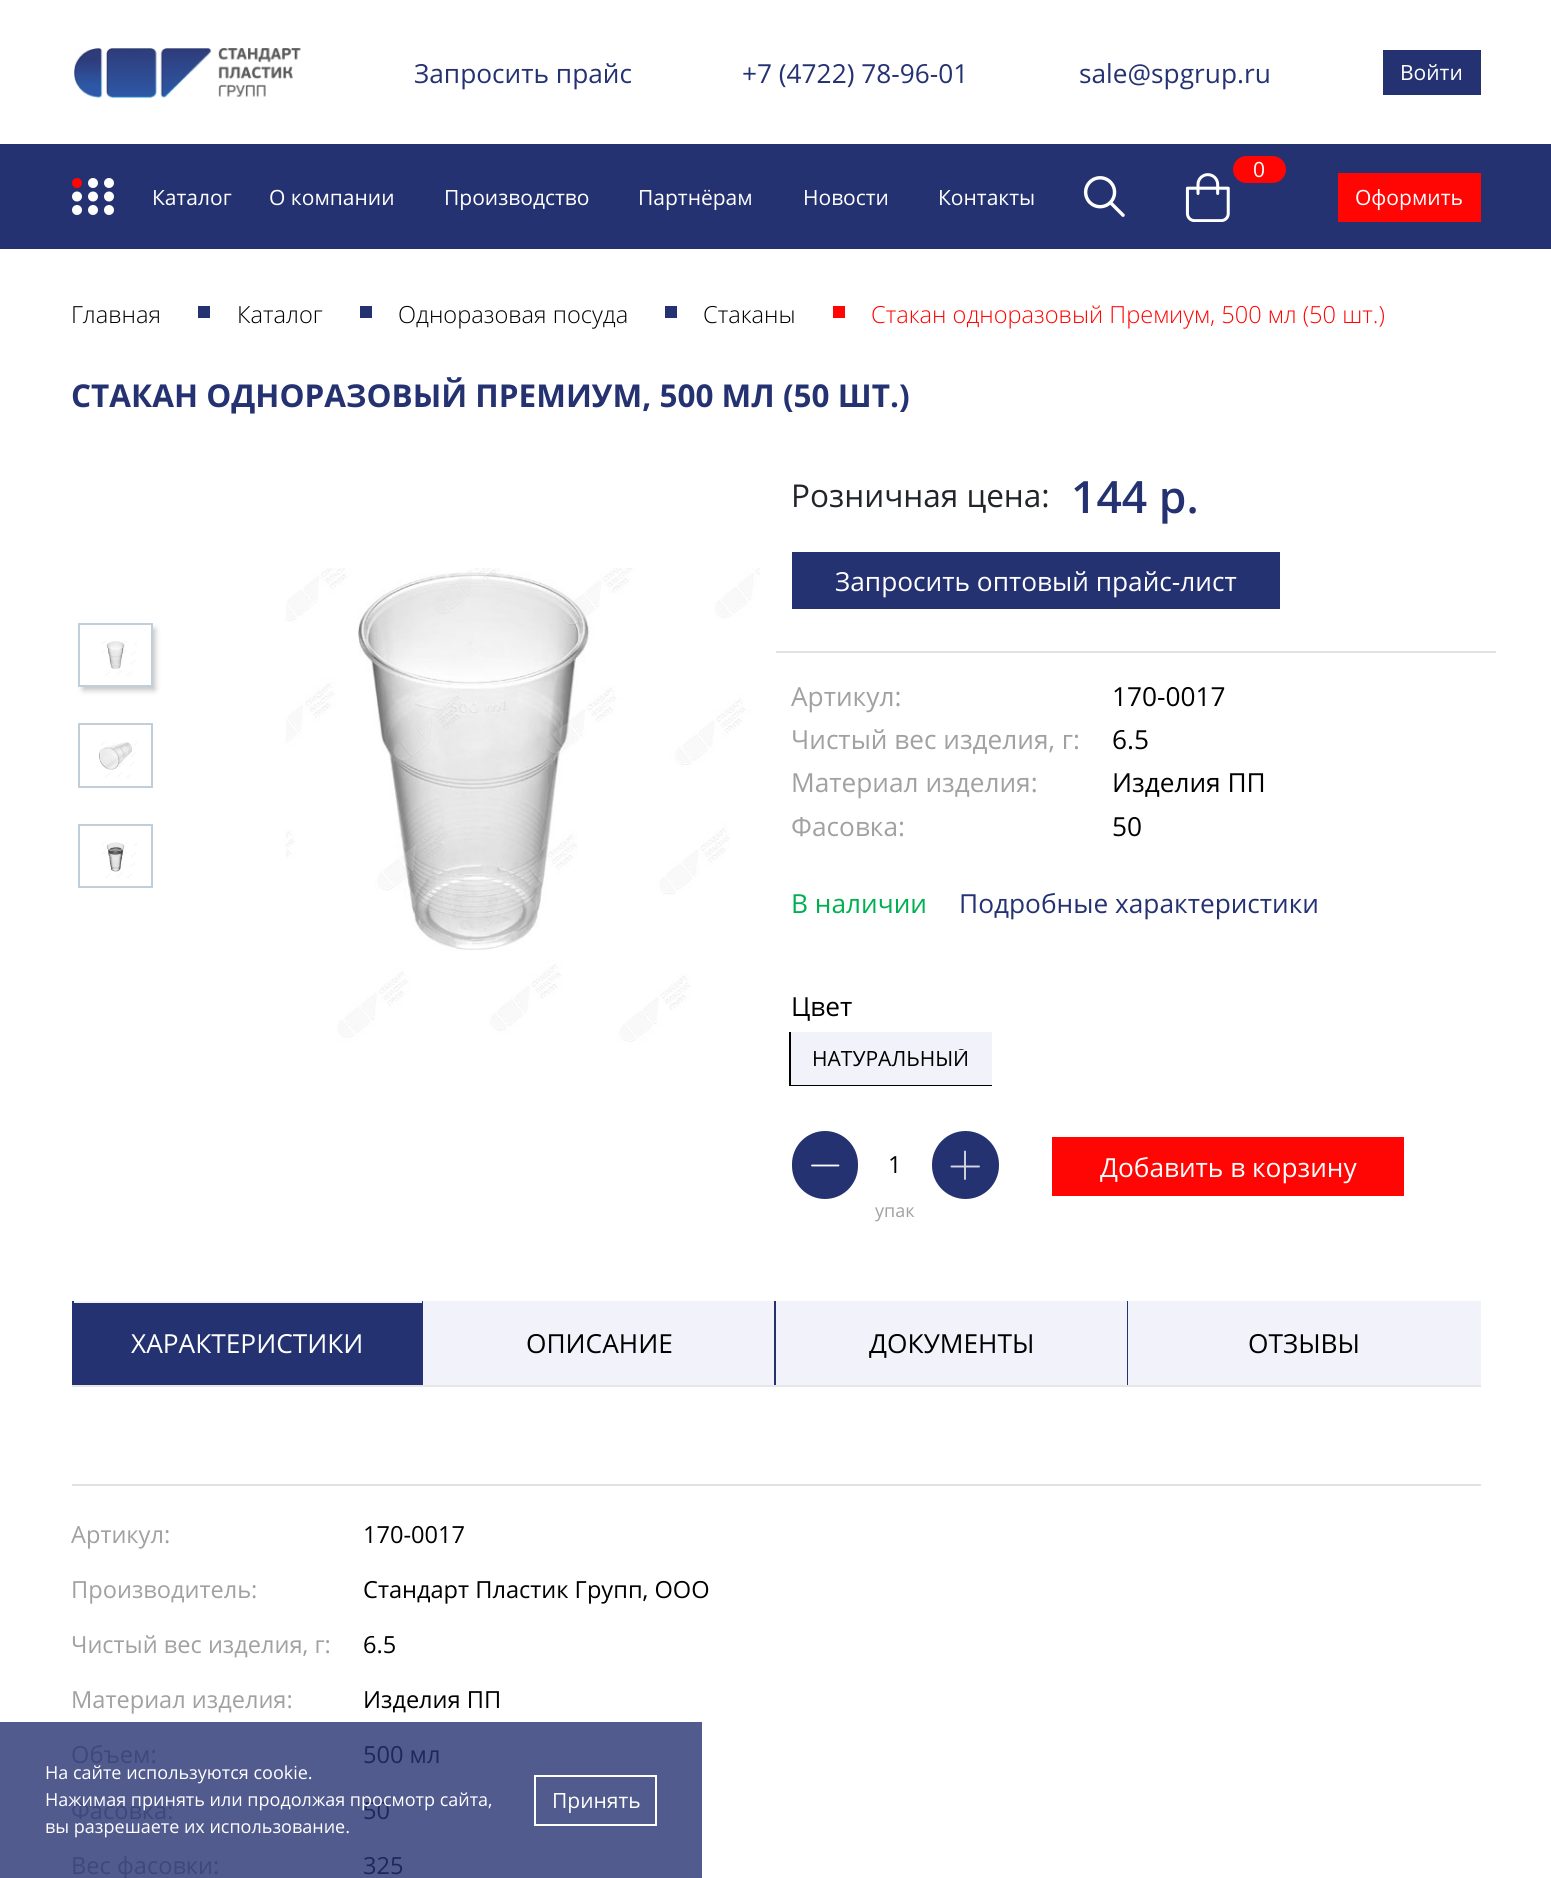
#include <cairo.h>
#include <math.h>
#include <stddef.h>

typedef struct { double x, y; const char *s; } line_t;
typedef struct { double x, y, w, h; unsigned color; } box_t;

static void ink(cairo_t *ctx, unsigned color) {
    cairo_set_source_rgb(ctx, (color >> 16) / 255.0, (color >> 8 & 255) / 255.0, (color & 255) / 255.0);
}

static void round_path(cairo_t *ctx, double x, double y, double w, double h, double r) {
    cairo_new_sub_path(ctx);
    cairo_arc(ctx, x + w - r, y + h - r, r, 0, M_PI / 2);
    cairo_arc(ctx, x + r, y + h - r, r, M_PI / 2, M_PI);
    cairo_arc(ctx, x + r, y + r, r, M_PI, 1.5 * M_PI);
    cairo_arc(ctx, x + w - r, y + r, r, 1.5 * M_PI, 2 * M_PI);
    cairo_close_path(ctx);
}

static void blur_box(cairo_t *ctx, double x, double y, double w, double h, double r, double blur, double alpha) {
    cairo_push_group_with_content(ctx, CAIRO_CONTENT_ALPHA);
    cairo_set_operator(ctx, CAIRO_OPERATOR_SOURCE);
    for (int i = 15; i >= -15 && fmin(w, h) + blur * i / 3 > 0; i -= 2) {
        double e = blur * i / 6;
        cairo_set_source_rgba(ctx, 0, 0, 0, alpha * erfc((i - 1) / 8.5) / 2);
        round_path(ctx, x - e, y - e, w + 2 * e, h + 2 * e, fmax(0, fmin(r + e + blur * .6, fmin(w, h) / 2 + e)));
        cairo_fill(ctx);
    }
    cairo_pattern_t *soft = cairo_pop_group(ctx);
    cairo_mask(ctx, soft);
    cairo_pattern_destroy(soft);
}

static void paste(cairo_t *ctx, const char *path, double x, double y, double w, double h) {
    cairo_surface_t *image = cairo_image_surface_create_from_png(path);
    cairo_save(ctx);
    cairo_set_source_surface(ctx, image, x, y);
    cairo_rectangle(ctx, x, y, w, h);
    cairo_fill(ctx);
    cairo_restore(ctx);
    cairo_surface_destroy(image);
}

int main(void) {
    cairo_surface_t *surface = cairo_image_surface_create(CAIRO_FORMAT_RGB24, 1551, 1878);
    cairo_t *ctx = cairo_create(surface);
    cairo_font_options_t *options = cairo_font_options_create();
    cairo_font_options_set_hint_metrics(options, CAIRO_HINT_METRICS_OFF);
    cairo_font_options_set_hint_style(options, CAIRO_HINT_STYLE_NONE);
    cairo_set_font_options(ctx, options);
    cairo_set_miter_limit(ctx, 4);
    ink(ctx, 0xFFFFFF);
    cairo_paint(ctx);
    ink(ctx, 0x515B8E);
    cairo_rectangle(ctx, 0, 1722, 702, 156);
    cairo_fill(ctx);
    paste(ctx, "media/1.png", 74, 48, 227, 50);
    cairo_select_font_face(ctx, "Open Sans", CAIRO_FONT_SLANT_NORMAL, CAIRO_FONT_WEIGHT_NORMAL);
    cairo_set_font_size(ctx, 26.25);
    ink(ctx, 0x253272);
    {
        static const line_t items[] = {
            {414, 83, "Запросить прайс"},
            {742, 83, "+7 (4722) 78-96-01"},
            {1079, 83, "sale@spgrup.ru"},
        };
        for (size_t i = 0; i < sizeof items / sizeof *items; i++) {
            cairo_move_to(ctx, items[i].x, items[i].y);
            cairo_show_text(ctx, items[i].s);
        }
    }
    cairo_rectangle(ctx, 1383, 50, 98, 45);
    cairo_fill(ctx);
    cairo_set_font_size(ctx, 21);
    ink(ctx, 0xFFFFFF);
    cairo_move_to(ctx, 1400, 80);
    cairo_show_text(ctx, "Войти");
    ink(ctx, 0x253272);
    cairo_rectangle(ctx, 0, 144, 1551, 105);
    cairo_fill(ctx);
    paste(ctx, "media/2.png", 72, 178, 42, 37);
    ink(ctx, 0xFFFFFF);
    {
        static const line_t items[] = {
            {152, 205, "Каталог"},
            {269, 205, "О компании"},
            {444, 205, "Производство"},
            {638, 205, "Партнёрам"},
            {803, 205, "Новости"},
            {938, 205, "Контакты"},
        };
        for (size_t i = 0; i < sizeof items / sizeof *items; i++) {
            cairo_move_to(ctx, items[i].x, items[i].y);
            cairo_show_text(ctx, items[i].s);
        }
    }
    paste(ctx, "media/3.png", 1083, 176, 42, 41);
    paste(ctx, "media/4.png", 1185, 173, 45, 49);
    ink(ctx, 0xFF0503);
    round_path(ctx, 1234, 157, 51, 25, 12.5);
    cairo_fill_preserve(ctx);
    cairo_stroke(ctx);
    ink(ctx, 0xFFFFFF);
    cairo_move_to(ctx, 1253, 177);
    cairo_show_text(ctx, "0");
    ink(ctx, 0xFF0503);
    cairo_rectangle(ctx, 1338, 173, 143, 49);
    cairo_fill(ctx);
    ink(ctx, 0xFFFFFF);
    cairo_move_to(ctx, 1355, 205);
    cairo_show_text(ctx, "Оформить");
    cairo_select_font_face(ctx, "Open Sans Light", CAIRO_FONT_SLANT_NORMAL, CAIRO_FONT_WEIGHT_NORMAL);
    cairo_set_font_size(ctx, 23.6);
    ink(ctx, 0x000000);
    cairo_move_to(ctx, 71, 323);
    cairo_show_text(ctx, "Главная");
    ink(ctx, 0x253272);
    cairo_rectangle(ctx, 198, 306, 12, 12);
    cairo_fill(ctx);
    ink(ctx, 0x000000);
    cairo_move_to(ctx, 237, 323);
    cairo_show_text(ctx, "Каталог");
    ink(ctx, 0x253272);
    cairo_rectangle(ctx, 360, 306, 12, 12);
    cairo_fill(ctx);
    ink(ctx, 0x000000);
    cairo_move_to(ctx, 398, 323);
    cairo_show_text(ctx, "Одноразовая посуда");
    ink(ctx, 0x253272);
    cairo_rectangle(ctx, 665, 306, 12, 12);
    cairo_fill(ctx);
    ink(ctx, 0x000000);
    cairo_move_to(ctx, 703, 323);
    cairo_show_text(ctx, "Стаканы");
    ink(ctx, 0xFF0503);
    cairo_rectangle(ctx, 833, 306, 12, 12);
    cairo_fill(ctx);
    cairo_move_to(ctx, 871, 323);
    cairo_show_text(ctx, "Стакан одноразовый Премиум, 500 мл (50 шт.)");
    cairo_select_font_face(ctx, "Open Sans", CAIRO_FONT_SLANT_NORMAL, CAIRO_FONT_WEIGHT_BOLD);
    cairo_set_font_size(ctx, 31.5);
    ink(ctx, 0x253272);
    cairo_move_to(ctx, 71, 407);
    cairo_show_text(ctx, "СТАКАН ОДНОРАЗОВЫЙ ПРЕМИУМ, 500 МЛ (50 ШТ.)");
    ink(ctx, 0x000000);
    blur_box(ctx, 83, 629, 72, 61, 0, 3, 0.25);
    ink(ctx, 0xFFFFFF);
    cairo_rectangle(ctx, 79, 624, 73, 62);
    cairo_fill_preserve(ctx);
    ink(ctx, 0xC0CFDA);
    cairo_stroke(ctx);
    paste(ctx, "media/5.png", 101, 641, 36, 35);
    cairo_rectangle(ctx, 79, 724, 73, 63);
    cairo_stroke(ctx);
    paste(ctx, "media/6.png", 99, 742, 38, 36);
    cairo_rectangle(ctx, 79, 825, 73, 62);
    cairo_stroke(ctx);
    paste(ctx, "media/7.png", 101, 842, 36, 36);
    paste(ctx, "media/8.png", 284, 568, 476, 474);
    ink(ctx, 0xE2E2E2);
    cairo_rectangle(ctx, 776, 651, 720, 2);
    cairo_fill(ctx);
    cairo_select_font_face(ctx, "Open Sans", CAIRO_FONT_SLANT_NORMAL, CAIRO_FONT_WEIGHT_NORMAL);
    ink(ctx, 0x212529);
    cairo_move_to(ctx, 791, 507);
    cairo_show_text(ctx, "Розничная цена:");
    cairo_select_font_face(ctx, "Open Sans SemiBold", CAIRO_FONT_SLANT_NORMAL, CAIRO_FONT_WEIGHT_NORMAL);
    cairo_set_font_size(ctx, 44.5);
    ink(ctx, 0x253272);
    cairo_move_to(ctx, 1071, 513);
    cairo_show_text(ctx, "144 р.");
    cairo_rectangle(ctx, 792, 552, 488, 57);
    cairo_fill(ctx);
    cairo_select_font_face(ctx, "Open Sans", CAIRO_FONT_SLANT_NORMAL, CAIRO_FONT_WEIGHT_NORMAL);
    cairo_set_font_size(ctx, 26.25);
    ink(ctx, 0xFFFFFF);
    cairo_move_to(ctx, 835, 591);
    cairo_show_text(ctx, "Запросить оптовый прайс-лист");
    ink(ctx, 0xA1A1A1);
    cairo_move_to(ctx, 791, 706);
    cairo_show_text(ctx, "Артикул:");
    ink(ctx, 0x000000);
    cairo_move_to(ctx, 1112, 706);
    cairo_show_text(ctx, "170-0017");
    ink(ctx, 0xA1A1A1);
    cairo_move_to(ctx, 791, 749);
    cairo_show_text(ctx, "Чистый вес изделия, г:");
    ink(ctx, 0x000000);
    cairo_move_to(ctx, 1112, 749);
    cairo_show_text(ctx, "6.5");
    ink(ctx, 0xA1A1A1);
    cairo_move_to(ctx, 791, 792);
    cairo_show_text(ctx, "Материал изделия:");
    ink(ctx, 0x000000);
    cairo_move_to(ctx, 1112, 792);
    cairo_show_text(ctx, "Изделия ПП");
    ink(ctx, 0xA1A1A1);
    cairo_move_to(ctx, 791, 836);
    cairo_show_text(ctx, "Фасовка:");
    ink(ctx, 0x000000);
    cairo_move_to(ctx, 1112, 836);
    cairo_show_text(ctx, "50");
    ink(ctx, 0x00B050);
    cairo_move_to(ctx, 791, 913);
    cairo_show_text(ctx, "В наличии");
    ink(ctx, 0x253272);
    cairo_move_to(ctx, 959, 913);
    cairo_show_text(ctx, "Подробные характеристики");
    ink(ctx, 0x000000);
    cairo_move_to(ctx, 791, 1016);
    cairo_show_text(ctx, "Цвет");
    {
        static const box_t items[] = {
            {791, 1032, 201, 53, 0xF1F2FA},
            {789, 1085, 203, 1, 0x000000},
            {789, 1032, 2, 54, 0x000000},
        };
        for (size_t i = 0; i < sizeof items / sizeof *items; i++) {
            ink(ctx, items[i].color);
            cairo_rectangle(ctx, items[i].x, items[i].y, items[i].w, items[i].h);
            cairo_fill(ctx);
        }
    }
    cairo_save(ctx);
    cairo_rectangle(ctx, 812, 1049, 157, 21);
    cairo_clip(ctx);
    cairo_set_font_size(ctx, 21);
    cairo_move_to(ctx, 812, 1066);
    cairo_show_text(ctx, "НАТУРАЛЬНЫЙ");
    cairo_restore(ctx);
    ink(ctx, 0x253272);
    round_path(ctx, 792, 1131, 66, 68, 33);
    cairo_fill(ctx);
    cairo_new_path(ctx);
    cairo_move_to(ctx, 838.5, 1165.5);
    cairo_line_to(ctx, 812, 1165.5);
    ink(ctx, 0xFFFFFF);
    cairo_set_line_width(ctx, 1.8);
    cairo_set_line_cap(ctx, CAIRO_LINE_CAP_ROUND);
    cairo_set_line_join(ctx, CAIRO_LINE_JOIN_ROUND);
    cairo_stroke(ctx);
    cairo_set_font_size(ctx, 23.6);
    ink(ctx, 0x000000);
    cairo_move_to(ctx, 888, 1173);
    cairo_show_text(ctx, "1");
    ink(ctx, 0x253272);
    round_path(ctx, 932, 1131, 67, 68, 33.5);
    cairo_fill(ctx);
    cairo_new_path(ctx);
    cairo_move_to(ctx, 965, 1151.5);
    cairo_line_to(ctx, 965, 1179);
    cairo_move_to(ctx, 979, 1166.5);
    cairo_line_to(ctx, 951.5, 1166.5);
    ink(ctx, 0xD3D6E3);
    cairo_set_line_width(ctx, 1.9);
    cairo_stroke(ctx);
    cairo_set_font_size(ctx, 18);
    ink(ctx, 0xA1A1A1);
    cairo_move_to(ctx, 875, 1217);
    cairo_show_text(ctx, "упак");
    ink(ctx, 0xFF0503);
    cairo_rectangle(ctx, 1052, 1137, 352, 59);
    cairo_fill(ctx);
    cairo_set_font_size(ctx, 26.25);
    ink(ctx, 0xFFFFFF);
    cairo_move_to(ctx, 1100, 1177);
    cairo_show_text(ctx, "Добавить в корзину");
    {
        static const box_t items[] = {
            {72, 1385, 1409, 2, 0xE6E6E6},
            {74, 1303, 348, 82, 0x253272},
            {72, 1301, 351, 2, 0xF1F2FA},
            {422, 1301, 1, 84, 0x253272},
            {72, 1301, 2, 84, 0x253272},
        };
        for (size_t i = 0; i < sizeof items / sizeof *items; i++) {
            ink(ctx, items[i].color);
            cairo_rectangle(ctx, items[i].x, items[i].y, items[i].w, items[i].h);
            cairo_fill(ctx);
        }
    }
    ink(ctx, 0xFFFFFF);
    cairo_move_to(ctx, 131, 1353);
    cairo_show_text(ctx, "ХАРАКТЕРИСТИКИ");
    ink(ctx, 0xF1F2FA);
    cairo_rectangle(ctx, 423, 1301, 351, 84);
    cairo_fill(ctx);
    ink(ctx, 0x253272);
    cairo_rectangle(ctx, 774, 1301, 2, 84);
    cairo_fill(ctx);
    ink(ctx, 0x000000);
    cairo_move_to(ctx, 526, 1353);
    cairo_show_text(ctx, "ОПИСАНИЕ");
    ink(ctx, 0xF1F2FA);
    cairo_rectangle(ctx, 776, 1301, 351, 84);
    cairo_fill(ctx);
    ink(ctx, 0x253272);
    cairo_rectangle(ctx, 1127, 1301, 1, 84);
    cairo_fill(ctx);
    ink(ctx, 0x000000);
    cairo_move_to(ctx, 869, 1353);
    cairo_show_text(ctx, "ДОКУМЕНТЫ");
    ink(ctx, 0xF1F2FA);
    cairo_rectangle(ctx, 1128, 1301, 353, 84);
    cairo_fill(ctx);
    ink(ctx, 0x000000);
    cairo_move_to(ctx, 1248, 1353);
    cairo_show_text(ctx, "ОТЗЫВЫ");
    ink(ctx, 0xE2E2E2);
    cairo_rectangle(ctx, 72, 1484, 1409, 2);
    cairo_fill(ctx);
    cairo_set_font_size(ctx, 23.6);
    ink(ctx, 0xA1A1A1);
    cairo_move_to(ctx, 71, 1543);
    cairo_show_text(ctx, "Артикул:");
    ink(ctx, 0x000000);
    cairo_move_to(ctx, 363, 1543);
    cairo_show_text(ctx, "170-0017");
    ink(ctx, 0xA1A1A1);
    cairo_move_to(ctx, 71, 1598);
    cairo_show_text(ctx, "Производитель:");
    ink(ctx, 0x000000);
    cairo_move_to(ctx, 363, 1598);
    cairo_show_text(ctx, "Стандарт Пластик Групп, ООО");
    ink(ctx, 0xA1A1A1);
    cairo_move_to(ctx, 71, 1653);
    cairo_show_text(ctx, "Чистый вес изделия, г:");
    ink(ctx, 0x000000);
    cairo_move_to(ctx, 363, 1653);
    cairo_show_text(ctx, "6.5");
    ink(ctx, 0xA1A1A1);
    cairo_move_to(ctx, 71, 1708);
    cairo_show_text(ctx, "Материал изделия:");
    ink(ctx, 0x000000);
    cairo_move_to(ctx, 363, 1708);
    cairo_show_text(ctx, "Изделия ПП");
    ink(ctx, 0x3E487B);
    cairo_move_to(ctx, 71, 1763);
    cairo_show_text(ctx, "Объем:");
    ink(ctx, 0x1E285B);
    cairo_move_to(ctx, 363, 1763);
    cairo_show_text(ctx, "500 мл");
    ink(ctx, 0x3E487B);
    cairo_move_to(ctx, 71, 1819);
    cairo_show_text(ctx, "Фасовка:");
    ink(ctx, 0x1E285B);
    cairo_move_to(ctx, 363, 1819);
    cairo_show_text(ctx, "50");
    ink(ctx, 0x3E487B);
    cairo_move_to(ctx, 71, 1874);
    cairo_show_text(ctx, "Вес фасовки:");
    ink(ctx, 0x1E285B);
    cairo_move_to(ctx, 363, 1874);
    cairo_show_text(ctx, "325");
    cairo_set_font_size(ctx, 18);
    ink(ctx, 0xFFFFFF);
    {
        static const line_t items[] = {
            {45, 1779, "На сайте используются cookie."},
            {45, 1806, "Нажимая принять или продолжая просмотр сайта,"},
            {45, 1833, "вы разрешаете их использование."},
        };
        for (size_t i = 0; i < sizeof items / sizeof *items; i++) {
            cairo_move_to(ctx, items[i].x, items[i].y);
            cairo_show_text(ctx, items[i].s);
        }
    }
    cairo_rectangle(ctx, 535, 1776, 121, 49);
    cairo_set_line_width(ctx, 2);
    cairo_set_line_cap(ctx, CAIRO_LINE_CAP_BUTT);
    cairo_set_line_join(ctx, CAIRO_LINE_JOIN_MITER);
    cairo_stroke(ctx);
    cairo_set_font_size(ctx, 21);
    cairo_move_to(ctx, 552, 1808);
    cairo_show_text(ctx, "Принять");
    cairo_surface_write_to_png(surface, "image.png");
    cairo_font_options_destroy(options);
    cairo_destroy(ctx);
    cairo_surface_destroy(surface);
    return 0;
}
